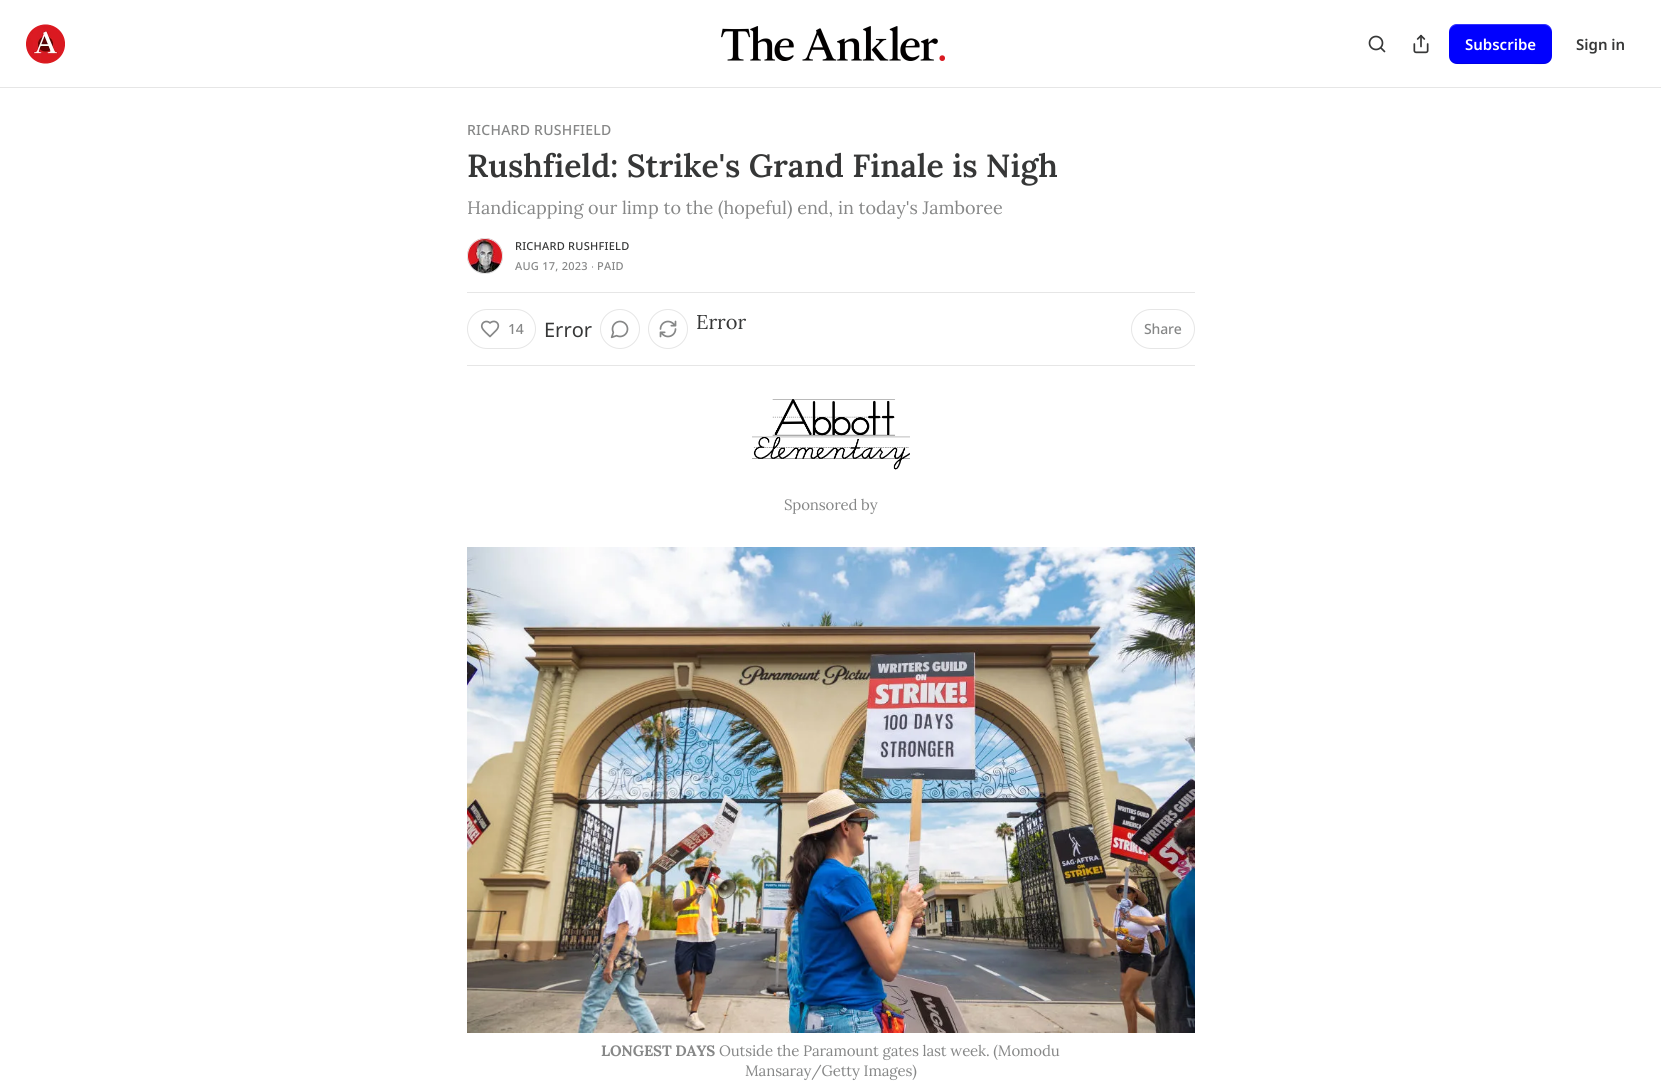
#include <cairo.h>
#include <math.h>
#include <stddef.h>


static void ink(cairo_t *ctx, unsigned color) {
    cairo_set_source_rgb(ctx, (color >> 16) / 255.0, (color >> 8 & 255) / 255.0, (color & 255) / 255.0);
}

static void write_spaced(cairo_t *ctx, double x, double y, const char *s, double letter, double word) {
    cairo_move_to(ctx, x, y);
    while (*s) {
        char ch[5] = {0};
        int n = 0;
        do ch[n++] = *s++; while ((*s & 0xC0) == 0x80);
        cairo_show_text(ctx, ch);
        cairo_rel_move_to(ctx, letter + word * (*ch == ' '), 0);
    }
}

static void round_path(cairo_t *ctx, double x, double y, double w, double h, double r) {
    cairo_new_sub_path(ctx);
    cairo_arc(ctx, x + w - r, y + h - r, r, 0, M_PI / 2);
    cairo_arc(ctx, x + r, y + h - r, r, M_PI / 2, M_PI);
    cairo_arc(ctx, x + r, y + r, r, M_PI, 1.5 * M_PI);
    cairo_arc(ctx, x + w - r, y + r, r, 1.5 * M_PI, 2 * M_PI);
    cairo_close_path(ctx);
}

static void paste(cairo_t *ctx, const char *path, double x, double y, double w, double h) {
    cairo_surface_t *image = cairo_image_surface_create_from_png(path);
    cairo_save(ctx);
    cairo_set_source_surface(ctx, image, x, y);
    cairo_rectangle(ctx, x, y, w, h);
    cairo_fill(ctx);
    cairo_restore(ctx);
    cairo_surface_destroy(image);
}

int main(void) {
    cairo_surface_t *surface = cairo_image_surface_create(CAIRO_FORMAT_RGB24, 1661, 1082);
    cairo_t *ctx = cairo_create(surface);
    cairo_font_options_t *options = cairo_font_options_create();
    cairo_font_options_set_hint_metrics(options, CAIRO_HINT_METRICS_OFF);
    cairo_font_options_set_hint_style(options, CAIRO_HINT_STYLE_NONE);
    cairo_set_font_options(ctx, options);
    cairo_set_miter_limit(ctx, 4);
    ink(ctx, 0xFFFFFF);
    cairo_paint(ctx);
    ink(ctx, 0xE6E6E6);
    cairo_rectangle(ctx, 0, 87, 1661, 1);
    cairo_fill(ctx);
    paste(ctx, "media/1.png", 26, 24, 39, 40);
    paste(ctx, "media/2.png", 721, 26, 224, 35);
    cairo_arc(ctx, 1376, 43, 6.5, 0, 2 * M_PI);
    ink(ctx, 0x363737);
    cairo_set_line_width(ctx, 1.7);
    cairo_stroke(ctx);
    cairo_new_path(ctx);
    cairo_move_to(ctx, 1384.5, 51.5);
    cairo_line_to(ctx, 1381, 48);
    cairo_set_line_cap(ctx, CAIRO_LINE_CAP_ROUND);
    cairo_set_line_join(ctx, CAIRO_LINE_JOIN_ROUND);
    cairo_stroke(ctx);
    paste(ctx, "media/3.png", 1413, 34, 16, 20);
    ink(ctx, 0x0101FE);
    round_path(ctx, 1449, 24, 103, 40, 8);
    cairo_fill(ctx);
    cairo_set_source_rgba(ctx, 0, 0, 0, 0.1);
    cairo_new_path(ctx);
    cairo_move_to(ctx, 1449, 55);
    cairo_curve_to(ctx, 1449, 67, 1463, 64, 1472, 64);
    cairo_line_to(ctx, 1530, 64);
    cairo_curve_to(ctx, 1538, 64, 1552, 67, 1552, 55);
    cairo_curve_to(ctx, 1552, 59, 1548, 63, 1544, 63);
    cairo_line_to(ctx, 1457, 63);
    cairo_curve_to(ctx, 1453, 63, 1449, 59, 1449, 55);
    cairo_close_path(ctx);
    cairo_fill(ctx);
    cairo_set_source_rgba(ctx, 1, 1, 1, 0.2);
    cairo_new_path(ctx);
    cairo_move_to(ctx, 1457, 25);
    cairo_line_to(ctx, 1544, 25);
    cairo_curve_to(ctx, 1548, 25, 1552, 29, 1552, 33);
    cairo_curve_to(ctx, 1552, 21, 1538, 24, 1530, 24);
    cairo_line_to(ctx, 1472, 24);
    cairo_curve_to(ctx, 1463, 24, 1449, 21, 1449, 33);
    cairo_curve_to(ctx, 1449, 29, 1453, 25, 1457, 25);
    cairo_close_path(ctx);
    cairo_fill(ctx);
    cairo_select_font_face(ctx, "Noto Sans SemiBold", CAIRO_FONT_SLANT_NORMAL, CAIRO_FONT_WEIGHT_NORMAL);
    cairo_set_font_size(ctx, 15);
    ink(ctx, 0xFFFFFF);
    cairo_move_to(ctx, 1465, 50);
    cairo_show_text(ctx, "Subscribe");
    ink(ctx, 0x363737);
    cairo_move_to(ctx, 1576, 50);
    cairo_show_text(ctx, "Sign in");
    cairo_select_font_face(ctx, "Noto Sans Medium", CAIRO_FONT_SLANT_NORMAL, CAIRO_FONT_WEIGHT_NORMAL);
    cairo_set_font_size(ctx, 14);
    ink(ctx, 0x868787);
    write_spaced(ctx, 467, 135, "RICHARD RUSHFIELD", 0.25, 0);
    cairo_select_font_face(ctx, "Lora SemiBold", CAIRO_FONT_SLANT_NORMAL, CAIRO_FONT_WEIGHT_NORMAL);
    cairo_set_font_size(ctx, 32);
    ink(ctx, 0x363737);
    cairo_move_to(ctx, 467, 177);
    cairo_show_text(ctx, "Rushfield: Strike's Grand Finale is Nigh");
    cairo_select_font_face(ctx, "Lora", CAIRO_FONT_SLANT_NORMAL, CAIRO_FONT_WEIGHT_NORMAL);
    cairo_set_font_size(ctx, 18);
    ink(ctx, 0x868787);
    cairo_move_to(ctx, 467, 214);
    cairo_show_text(ctx, "Handicapping our limp to the (hopeful) end, in today's Jamboree");
    cairo_new_path(ctx);
    cairo_arc(ctx, 485, 256, 17.5, 0, 2 * M_PI);
    ink(ctx, 0xE6E6E6);
    cairo_set_line_width(ctx, 1);
    cairo_set_line_cap(ctx, CAIRO_LINE_CAP_BUTT);
    cairo_set_line_join(ctx, CAIRO_LINE_JOIN_MITER);
    cairo_stroke(ctx);
    paste(ctx, "media/4.png", 467, 238, 36, 36);
    cairo_arc(ctx, 485, 256, 17.5, 0, 2 * M_PI);
    cairo_stroke(ctx);
    cairo_select_font_face(ctx, "Noto Sans Medium", CAIRO_FONT_SLANT_NORMAL, CAIRO_FONT_WEIGHT_NORMAL);
    cairo_set_font_size(ctx, 11);
    ink(ctx, 0x363737);
    write_spaced(ctx, 515, 250, "RICHARD RUSHFIELD", 0.25, 0);
    ink(ctx, 0x868787);
    write_spaced(ctx, 515, 270, "AUG 17, 2023", 0.25, 0);
    cairo_select_font_face(ctx, "Liberation Sans", CAIRO_FONT_SLANT_NORMAL, CAIRO_FONT_WEIGHT_NORMAL);
    write_spaced(ctx, 591, 270, "∙", 0.25, 0);
    cairo_select_font_face(ctx, "Noto Sans Medium", CAIRO_FONT_SLANT_NORMAL, CAIRO_FONT_WEIGHT_NORMAL);
    write_spaced(ctx, 597, 270, "PAID", 0.25, 0);
    ink(ctx, 0xE6E6E6);
    cairo_rectangle(ctx, 467, 292, 728, 1);
    cairo_fill(ctx);
    cairo_rectangle(ctx, 467, 365, 728, 1);
    cairo_fill(ctx);
    round_path(ctx, 467.5, 309.5, 68, 39, 19.5);
    cairo_stroke(ctx);
    cairo_new_path(ctx);
    cairo_move_to(ctx, 496, 330.5);
    cairo_curve_to(ctx, 502, 324.5, 495, 318.5, 490, 323);
    cairo_curve_to(ctx, 486.5, 319.5, 480.5, 322.5, 482, 327.5);
    cairo_curve_to(ctx, 483, 330.5, 488, 334.5, 490, 336.5);
    cairo_close_path(ctx);
    ink(ctx, 0x868787);
    cairo_set_line_width(ctx, 1.7);
    cairo_set_line_cap(ctx, CAIRO_LINE_CAP_ROUND);
    cairo_set_line_join(ctx, CAIRO_LINE_JOIN_ROUND);
    cairo_stroke(ctx);
    cairo_set_font_size(ctx, 14);
    write_spaced(ctx, 508, 334, "14", -0.15, 0);
    cairo_select_font_face(ctx, "Noto Sans", CAIRO_FONT_SLANT_NORMAL, CAIRO_FONT_WEIGHT_NORMAL);
    cairo_set_font_size(ctx, 20);
    ink(ctx, 0x363737);
    cairo_move_to(ctx, 544, 337);
    cairo_show_text(ctx, "Error");
    cairo_new_path(ctx);
    cairo_arc(ctx, 620, 329, 19.5, 0, 2 * M_PI);
    ink(ctx, 0xE6E6E6);
    cairo_set_line_width(ctx, 1);
    cairo_set_line_cap(ctx, CAIRO_LINE_CAP_BUTT);
    cairo_set_line_join(ctx, CAIRO_LINE_JOIN_MITER);
    cairo_stroke(ctx);
    paste(ctx, "media/5.png", 610, 320, 19, 19);
    cairo_arc(ctx, 668, 329, 19.5, 0, 2 * M_PI);
    cairo_stroke(ctx);
    paste(ctx, "media/6.png", 659, 320, 18, 18);
    cairo_select_font_face(ctx, "Lora", CAIRO_FONT_SLANT_NORMAL, CAIRO_FONT_WEIGHT_NORMAL);
    ink(ctx, 0x363737);
    cairo_move_to(ctx, 696, 329);
    cairo_show_text(ctx, "Error");
    round_path(ctx, 1131.5, 309.5, 63, 39, 19.5);
    ink(ctx, 0xE6E6E6);
    cairo_stroke(ctx);
    cairo_select_font_face(ctx, "Noto Sans Medium", CAIRO_FONT_SLANT_NORMAL, CAIRO_FONT_WEIGHT_NORMAL);
    cairo_set_font_size(ctx, 14);
    ink(ctx, 0x868787);
    write_spaced(ctx, 1144, 334, "Share", -0.15, 0);
    paste(ctx, "media/7.png", 752, 399, 158, 71);
    cairo_select_font_face(ctx, "Lora", CAIRO_FONT_SLANT_NORMAL, CAIRO_FONT_WEIGHT_NORMAL);
    cairo_set_font_size(ctx, 15);
    write_spaced(ctx, 784, 510, "Sponsored by", -0.15, 0);
    paste(ctx, "media/8.png", 467, 547, 728, 486);
    cairo_select_font_face(ctx, "Lora", CAIRO_FONT_SLANT_NORMAL, CAIRO_FONT_WEIGHT_BOLD);
    write_spaced(ctx, 601, 1056, "LONGEST DAYS", -0.15, 0);
    cairo_select_font_face(ctx, "Lora", CAIRO_FONT_SLANT_NORMAL, CAIRO_FONT_WEIGHT_NORMAL);
    write_spaced(ctx, 719, 1056, "Outside the Paramount gates last week. (Momodu", -0.15, 0);
    write_spaced(ctx, 745, 1076, "Mansaray/Getty Images)", -0.15, 0);
    cairo_surface_write_to_png(surface, "image.png");
    cairo_font_options_destroy(options);
    cairo_destroy(ctx);
    cairo_surface_destroy(surface);
    return 0;
}
